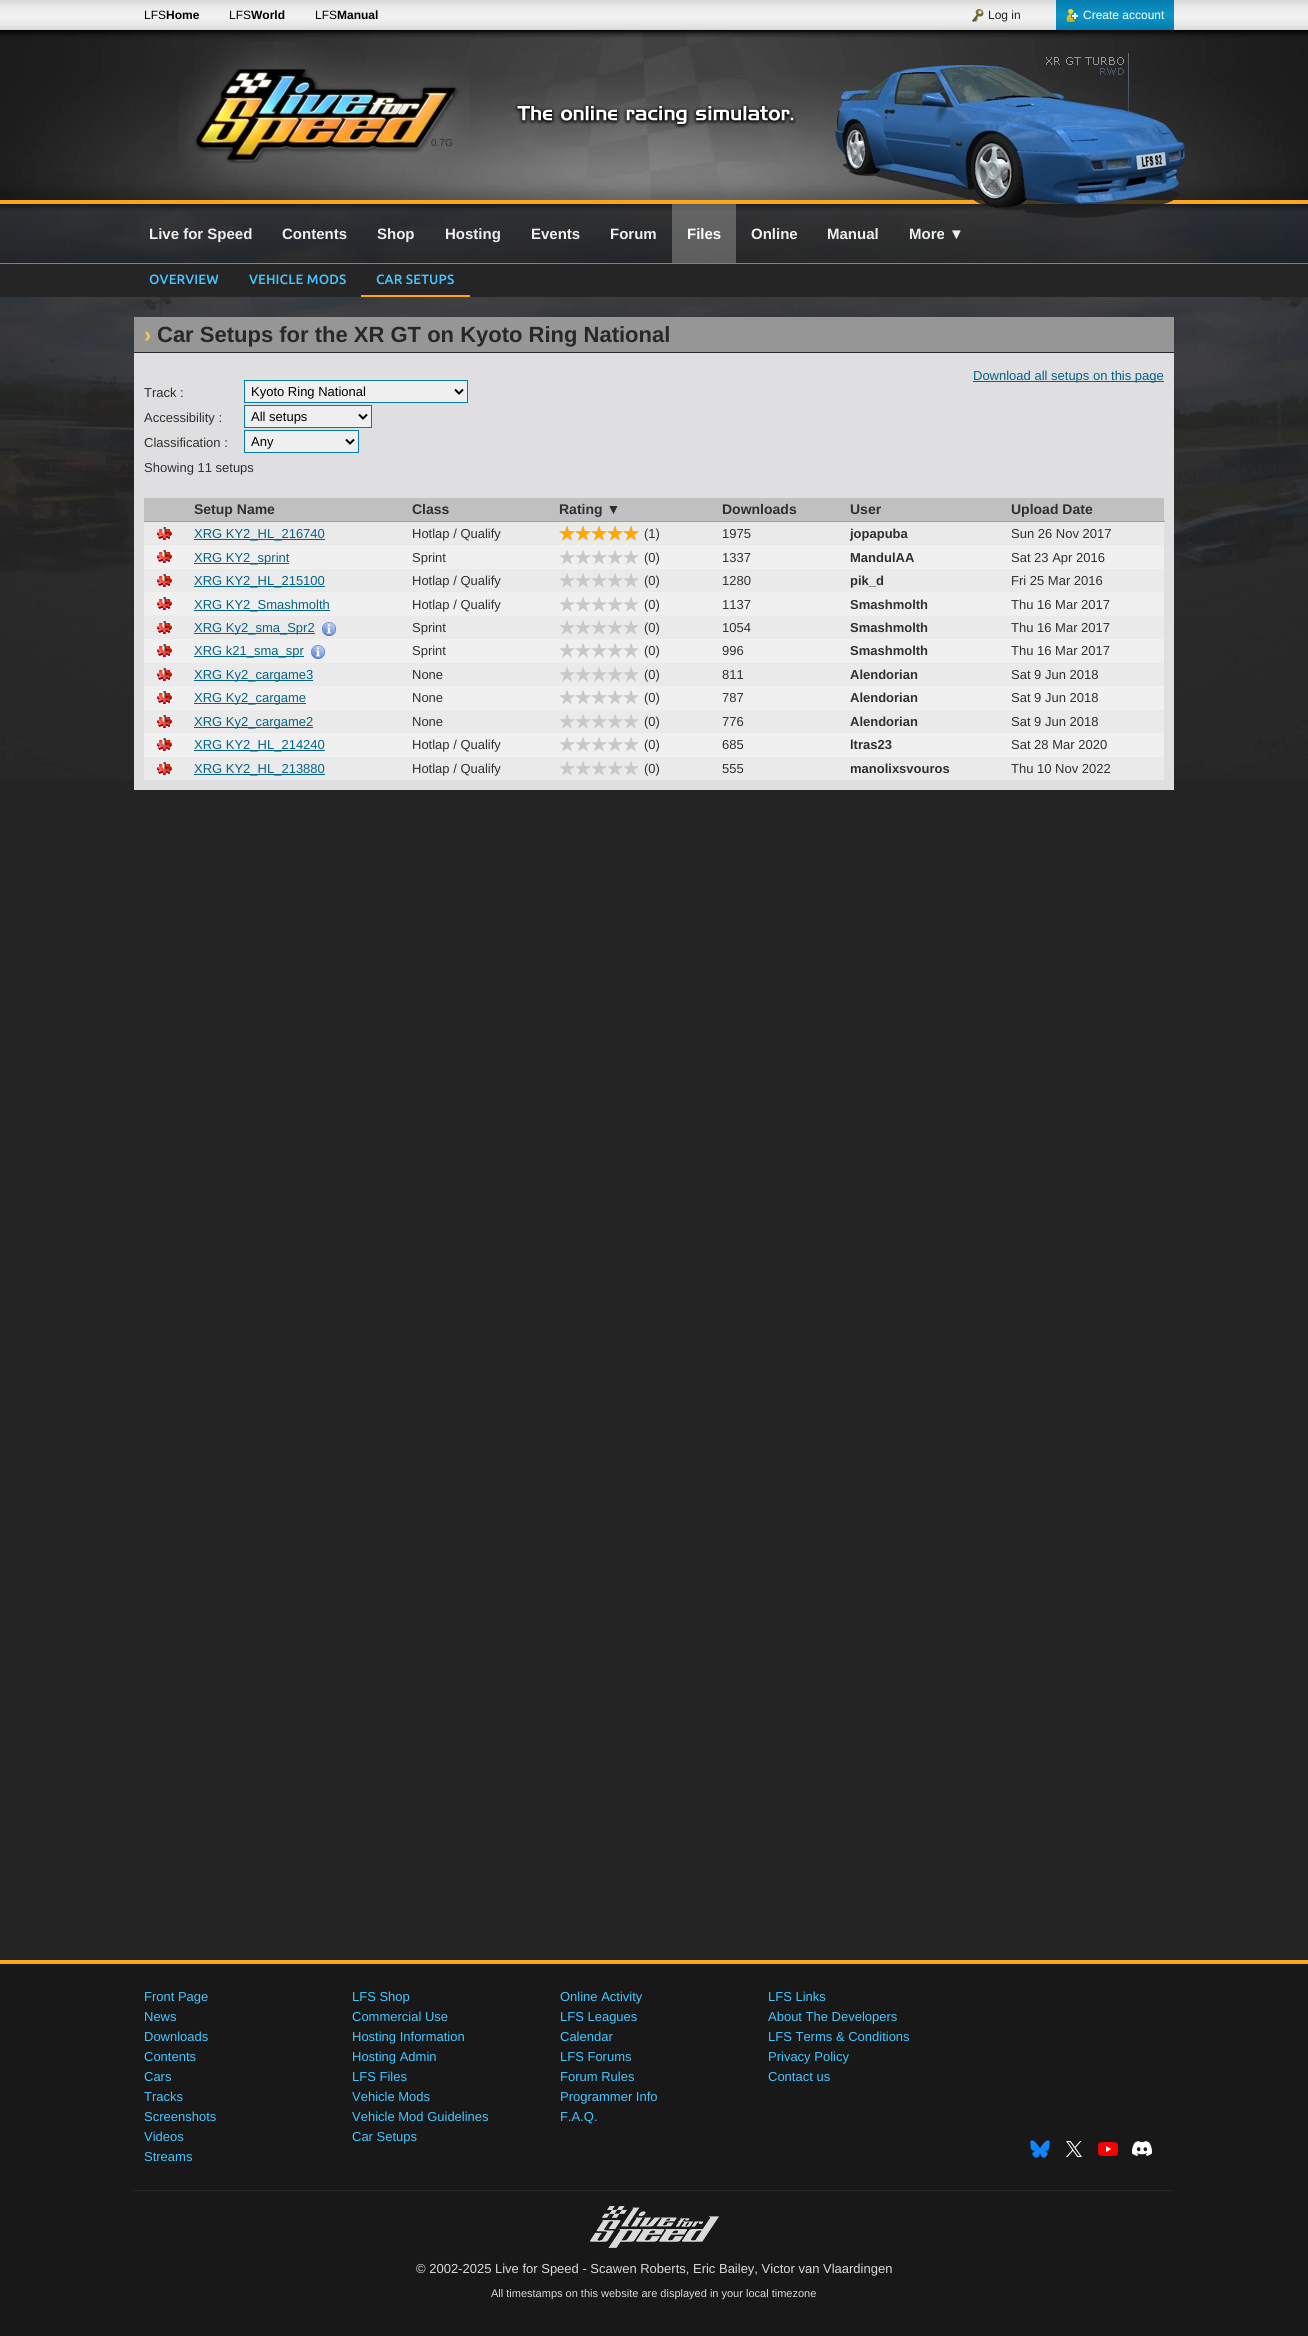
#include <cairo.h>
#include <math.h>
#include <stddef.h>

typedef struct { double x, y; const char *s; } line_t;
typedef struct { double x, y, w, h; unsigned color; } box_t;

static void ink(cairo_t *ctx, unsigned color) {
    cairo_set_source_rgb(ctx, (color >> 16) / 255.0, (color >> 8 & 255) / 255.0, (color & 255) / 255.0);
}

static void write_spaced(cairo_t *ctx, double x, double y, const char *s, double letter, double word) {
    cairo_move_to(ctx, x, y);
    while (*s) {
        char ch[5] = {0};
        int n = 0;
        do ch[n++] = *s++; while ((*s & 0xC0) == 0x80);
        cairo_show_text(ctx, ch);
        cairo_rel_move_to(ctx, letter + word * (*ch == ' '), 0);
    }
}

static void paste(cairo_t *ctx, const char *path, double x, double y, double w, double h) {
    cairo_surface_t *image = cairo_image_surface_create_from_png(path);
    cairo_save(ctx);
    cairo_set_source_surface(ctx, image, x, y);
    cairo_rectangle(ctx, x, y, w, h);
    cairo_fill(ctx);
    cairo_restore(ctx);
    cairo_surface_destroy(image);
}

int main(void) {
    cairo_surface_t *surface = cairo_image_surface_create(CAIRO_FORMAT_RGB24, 1308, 2336);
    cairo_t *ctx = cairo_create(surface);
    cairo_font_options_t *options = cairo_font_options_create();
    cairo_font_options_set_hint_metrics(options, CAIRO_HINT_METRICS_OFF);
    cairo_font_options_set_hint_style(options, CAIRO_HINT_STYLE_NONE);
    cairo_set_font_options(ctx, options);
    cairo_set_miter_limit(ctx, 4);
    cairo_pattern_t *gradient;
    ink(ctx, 0x242424);
    cairo_paint(ctx);
    paste(ctx, "media/1.png", 0, 204, 1308, 577);
    paste(ctx, "media/5.png", 0, 30, 1308, 170);
    paste(ctx, "media/2.png", 0, 0, 1308, 38);
    cairo_select_font_face(ctx, "Liberation Sans", CAIRO_FONT_SLANT_NORMAL, CAIRO_FONT_WEIGHT_NORMAL);
    cairo_set_font_size(ctx, 12);
    ink(ctx, 0x000000);
    cairo_move_to(ctx, 144, 19);
    cairo_show_text(ctx, "LFS");
    cairo_select_font_face(ctx, "Liberation Sans", CAIRO_FONT_SLANT_NORMAL, CAIRO_FONT_WEIGHT_BOLD);
    cairo_move_to(ctx, 166, 19);
    cairo_show_text(ctx, "Home");
    cairo_select_font_face(ctx, "Liberation Sans", CAIRO_FONT_SLANT_NORMAL, CAIRO_FONT_WEIGHT_NORMAL);
    cairo_move_to(ctx, 229, 19);
    cairo_show_text(ctx, "LFS");
    cairo_select_font_face(ctx, "Liberation Sans", CAIRO_FONT_SLANT_NORMAL, CAIRO_FONT_WEIGHT_BOLD);
    cairo_move_to(ctx, 251, 19);
    cairo_show_text(ctx, "World");
    cairo_select_font_face(ctx, "Liberation Sans", CAIRO_FONT_SLANT_NORMAL, CAIRO_FONT_WEIGHT_NORMAL);
    cairo_move_to(ctx, 315, 19);
    cairo_show_text(ctx, "LFS");
    cairo_select_font_face(ctx, "Liberation Sans", CAIRO_FONT_SLANT_NORMAL, CAIRO_FONT_WEIGHT_BOLD);
    cairo_move_to(ctx, 337, 19);
    cairo_show_text(ctx, "Manual");
    paste(ctx, "media/3.png", 972, 9, 12, 13);
    cairo_select_font_face(ctx, "Liberation Sans", CAIRO_FONT_SLANT_NORMAL, CAIRO_FONT_WEIGHT_NORMAL);
    ink(ctx, 0x202020);
    cairo_move_to(ctx, 988, 19);
    cairo_show_text(ctx, "Log in");
    gradient = cairo_pattern_create_linear(1115, 0, 1115, 30);
    cairo_pattern_add_color_stop_rgba(gradient, 0, 0.02, 0.482, 0.678, 1);
    cairo_pattern_add_color_stop_rgba(gradient, 0.5, 0.055, 0.588, 0.78, 1);
    cairo_pattern_add_color_stop_rgba(gradient, 1, 0.02, 0.482, 0.678, 1);
    cairo_set_source(ctx, gradient);
    cairo_pattern_destroy(gradient);
    cairo_rectangle(ctx, 1056, 0, 118, 30);
    cairo_fill(ctx);
    paste(ctx, "media/4.png", 1066, 9, 12, 13);
    ink(ctx, 0xFFFFFF);
    cairo_move_to(ctx, 1083, 19);
    cairo_show_text(ctx, "Create account");
    paste(ctx, "media/6.png", 514, 103, 283, 26);
    ink(ctx, 0xFFA519);
    cairo_rectangle(ctx, 0, 200, 1308, 4);
    cairo_fill(ctx);
    paste(ctx, "media/7.png", 835, 53, 350, 165);
    paste(ctx, "media/8.png", 179, 41, 291, 144);
    cairo_set_font_size(ctx, 10);
    ink(ctx, 0x303030);
    cairo_move_to(ctx, 431, 146);
    cairo_show_text(ctx, "0.7G");
    cairo_set_source_rgba(ctx, 0.784, 0.784, 0.98, 0.5);
    cairo_rectangle(ctx, 0, 263, 1308, 1);
    cairo_fill(ctx);
    cairo_select_font_face(ctx, "Liberation Sans", CAIRO_FONT_SLANT_NORMAL, CAIRO_FONT_WEIGHT_BOLD);
    cairo_set_font_size(ctx, 15);
    ink(ctx, 0xEEEEEE);
    {
        static const line_t items[] = {
            {149, 239, "Live for Speed"},
            {282, 239, "Contents"},
            {377, 239, "Shop"},
            {445, 239, "Hosting"},
            {531, 239, "Events"},
            {610, 239, "Forum"},
        };
        for (size_t i = 0; i < sizeof items / sizeof *items; i++) {
            cairo_move_to(ctx, items[i].x, items[i].y);
            cairo_show_text(ctx, items[i].s);
        }
    }
    cairo_set_source_rgba(ctx, 0.588, 0.588, 0.588, 0.5);
    cairo_rectangle(ctx, 672, 204, 64, 59);
    cairo_fill(ctx);
    ink(ctx, 0xFFFFFF);
    cairo_move_to(ctx, 687, 239);
    cairo_show_text(ctx, "Files");
    ink(ctx, 0xEEEEEE);
    {
        static const line_t items[] = {
            {751, 239, "Online"},
            {827, 239, "Manual"},
            {909, 239, "More"},
        };
        for (size_t i = 0; i < sizeof items / sizeof *items; i++) {
            cairo_move_to(ctx, items[i].x, items[i].y);
            cairo_show_text(ctx, items[i].s);
        }
    }
    cairo_select_font_face(ctx, "Liberation Sans", CAIRO_FONT_SLANT_NORMAL, CAIRO_FONT_WEIGHT_NORMAL);
    cairo_move_to(ctx, 949, 239);
    cairo_show_text(ctx, "▼");
    ink(ctx, 0x252525);
    cairo_rectangle(ctx, 0, 264, 1308, 33);
    cairo_fill(ctx);
    cairo_select_font_face(ctx, "Ubuntu", CAIRO_FONT_SLANT_NORMAL, CAIRO_FONT_WEIGHT_BOLD);
    cairo_set_font_size(ctx, 13);
    ink(ctx, 0x48C5FF);
    write_spaced(ctx, 149, 284, "OVERVIEW", 0.5, 0);
    write_spaced(ctx, 249, 284, "VEHICLE MODS", 0.5, 0);
    ink(ctx, 0xFFA519);
    cairo_rectangle(ctx, 361, 295, 109, 2);
    cairo_fill(ctx);
    ink(ctx, 0x48C5FF);
    write_spaced(ctx, 376, 284, "CAR SETUPS", 0.5, 0);
    ink(ctx, 0x969696);
    cairo_rectangle(ctx, 134, 317, 1040, 35);
    cairo_fill(ctx);
    cairo_select_font_face(ctx, "Liberation Sans", CAIRO_FONT_SLANT_NORMAL, CAIRO_FONT_WEIGHT_BOLD);
    cairo_set_font_size(ctx, 22);
    ink(ctx, 0xFBC946);
    cairo_move_to(ctx, 144, 342);
    cairo_show_text(ctx, "›");
    ink(ctx, 0x282828);
    cairo_move_to(ctx, 157, 342);
    cairo_show_text(ctx, "Car Setups for the XR GT on Kyoto Ring National");
    {
        static const box_t items[] = {
            {134, 353, 1040, 437, 0xDFDEE0},
            {134, 352, 1040, 1, 0x282828},
            {973, 381, 191, 1, 0x066386},
        };
        for (size_t i = 0; i < sizeof items / sizeof *items; i++) {
            ink(ctx, items[i].color);
            cairo_rectangle(ctx, items[i].x, items[i].y, items[i].w, items[i].h);
            cairo_fill(ctx);
        }
    }
    cairo_select_font_face(ctx, "Liberation Sans", CAIRO_FONT_SLANT_NORMAL, CAIRO_FONT_WEIGHT_NORMAL);
    cairo_set_font_size(ctx, 13);
    cairo_move_to(ctx, 973, 380);
    cairo_show_text(ctx, "Download all setups on this page");
    ink(ctx, 0x303030);
    cairo_move_to(ctx, 144, 397);
    cairo_show_text(ctx, "Track :");
    ink(ctx, 0xEFEFEF);
    cairo_rectangle(ctx, 244.5, 380.5, 223, 22);
    cairo_fill_preserve(ctx);
    ink(ctx, 0x057BAD);
    cairo_set_line_width(ctx, 1);
    cairo_stroke(ctx);
    cairo_new_path(ctx);
    cairo_move_to(ctx, 455, 389.5);
    cairo_line_to(ctx, 459, 393.5);
    cairo_line_to(ctx, 463, 389.5);
    ink(ctx, 0x000000);
    cairo_set_line_width(ctx, 2);
    cairo_stroke(ctx);
    cairo_move_to(ctx, 251, 396);
    cairo_show_text(ctx, "Kyoto Ring National");
    ink(ctx, 0x303030);
    cairo_move_to(ctx, 144, 422);
    cairo_show_text(ctx, "Accessibility :");
    ink(ctx, 0xEFEFEF);
    cairo_rectangle(ctx, 244.5, 405.5, 127, 22);
    cairo_fill_preserve(ctx);
    ink(ctx, 0x057BAD);
    cairo_set_line_width(ctx, 1);
    cairo_stroke(ctx);
    cairo_new_path(ctx);
    cairo_move_to(ctx, 359, 414.5);
    cairo_line_to(ctx, 363, 418.5);
    cairo_line_to(ctx, 367, 414.5);
    ink(ctx, 0x000000);
    cairo_set_line_width(ctx, 2);
    cairo_stroke(ctx);
    cairo_move_to(ctx, 251, 421);
    cairo_show_text(ctx, "All setups");
    ink(ctx, 0x303030);
    cairo_move_to(ctx, 144, 447);
    cairo_show_text(ctx, "Classification :");
    ink(ctx, 0xEFEFEF);
    cairo_rectangle(ctx, 244.5, 430.5, 114, 22);
    cairo_fill_preserve(ctx);
    ink(ctx, 0x057BAD);
    cairo_set_line_width(ctx, 1);
    cairo_stroke(ctx);
    cairo_new_path(ctx);
    cairo_move_to(ctx, 346, 439.5);
    cairo_line_to(ctx, 350, 443.5);
    cairo_line_to(ctx, 354, 439.5);
    ink(ctx, 0x000000);
    cairo_set_line_width(ctx, 2);
    cairo_stroke(ctx);
    cairo_move_to(ctx, 251, 446);
    cairo_show_text(ctx, "Any");
    ink(ctx, 0x303030);
    cairo_move_to(ctx, 144, 472);
    cairo_show_text(ctx, "Showing 11 setups");
    ink(ctx, 0xC0C0C0);
    cairo_rectangle(ctx, 144, 498, 1020, 23);
    cairo_fill(ctx);
    cairo_select_font_face(ctx, "Liberation Sans", CAIRO_FONT_SLANT_NORMAL, CAIRO_FONT_WEIGHT_BOLD);
    cairo_set_font_size(ctx, 14);
    ink(ctx, 0x303030);
    {
        static const line_t items[] = {
            {194, 514, "Setup Name"},
            {412, 514, "Class"},
            {559, 514, "Rating ▼"},
            {722, 514, "Downloads"},
            {850, 514, "User"},
        };
        for (size_t i = 0; i < sizeof items / sizeof *items; i++) {
            cairo_move_to(ctx, items[i].x, items[i].y);
            cairo_show_text(ctx, items[i].s);
        }
    }
    ink(ctx, 0xA0A0A0);
    cairo_rectangle(ctx, 144, 521, 1021, 1);
    cairo_fill(ctx);
    ink(ctx, 0x303030);
    cairo_move_to(ctx, 1011, 514);
    cairo_show_text(ctx, "Upload Date");
    ink(ctx, 0xEAEAEA);
    cairo_rectangle(ctx, 144, 522, 1020, 23);
    cairo_fill(ctx);
    paste(ctx, "media/9.png", 157, 527, 15, 13);
    ink(ctx, 0x066386);
    cairo_rectangle(ctx, 194, 539, 131, 1);
    cairo_fill(ctx);
    cairo_select_font_face(ctx, "Liberation Sans", CAIRO_FONT_SLANT_NORMAL, CAIRO_FONT_WEIGHT_NORMAL);
    cairo_set_font_size(ctx, 13);
    cairo_move_to(ctx, 194, 538);
    cairo_show_text(ctx, "XRG KY2_HL_216740");
    ink(ctx, 0x303030);
    cairo_move_to(ctx, 412, 538);
    cairo_show_text(ctx, "Hotlap / Qualify");
    paste(ctx, "media/10.png", 559, 526, 80, 15);
    paste(ctx, "media/11.png", 559, 525, 80, 16);
    cairo_move_to(ctx, 644, 538);
    cairo_show_text(ctx, "(1)");
    cairo_move_to(ctx, 722, 538);
    cairo_show_text(ctx, "1975");
    cairo_select_font_face(ctx, "Liberation Sans", CAIRO_FONT_SLANT_NORMAL, CAIRO_FONT_WEIGHT_BOLD);
    cairo_move_to(ctx, 850, 538);
    cairo_show_text(ctx, "jopapuba");
    cairo_select_font_face(ctx, "Liberation Sans", CAIRO_FONT_SLANT_NORMAL, CAIRO_FONT_WEIGHT_NORMAL);
    cairo_move_to(ctx, 1011, 538);
    cairo_show_text(ctx, "Sun 26 Nov 2017");
    ink(ctx, 0xF0F0F0);
    cairo_rectangle(ctx, 144, 545, 1020, 24);
    cairo_fill(ctx);
    paste(ctx, "media/12.png", 157, 550, 15, 13);
    ink(ctx, 0x066386);
    cairo_rectangle(ctx, 194, 563, 95, 1);
    cairo_fill(ctx);
    cairo_move_to(ctx, 194, 562);
    cairo_show_text(ctx, "XRG KY2_sprint");
    ink(ctx, 0x303030);
    cairo_move_to(ctx, 412, 562);
    cairo_show_text(ctx, "Sprint");
    paste(ctx, "media/13.png", 559, 550, 80, 15);
    cairo_move_to(ctx, 644, 562);
    cairo_show_text(ctx, "(0)");
    cairo_move_to(ctx, 722, 562);
    cairo_show_text(ctx, "1337");
    cairo_select_font_face(ctx, "Liberation Sans", CAIRO_FONT_SLANT_NORMAL, CAIRO_FONT_WEIGHT_BOLD);
    cairo_move_to(ctx, 850, 562);
    cairo_show_text(ctx, "MandulAA");
    cairo_select_font_face(ctx, "Liberation Sans", CAIRO_FONT_SLANT_NORMAL, CAIRO_FONT_WEIGHT_NORMAL);
    cairo_move_to(ctx, 1011, 562);
    cairo_show_text(ctx, "Sat 23 Apr 2016");
    ink(ctx, 0xEAEAEA);
    cairo_rectangle(ctx, 144, 569, 1020, 23);
    cairo_fill(ctx);
    paste(ctx, "media/9.png", 157, 574, 15, 13);
    ink(ctx, 0x066386);
    cairo_rectangle(ctx, 194, 586, 131, 1);
    cairo_fill(ctx);
    cairo_move_to(ctx, 194, 585);
    cairo_show_text(ctx, "XRG KY2_HL_215100");
    ink(ctx, 0x303030);
    cairo_move_to(ctx, 412, 585);
    cairo_show_text(ctx, "Hotlap / Qualify");
    paste(ctx, "media/10.png", 559, 573, 80, 15);
    cairo_move_to(ctx, 644, 585);
    cairo_show_text(ctx, "(0)");
    cairo_move_to(ctx, 722, 585);
    cairo_show_text(ctx, "1280");
    cairo_select_font_face(ctx, "Liberation Sans", CAIRO_FONT_SLANT_NORMAL, CAIRO_FONT_WEIGHT_BOLD);
    cairo_move_to(ctx, 850, 585);
    cairo_show_text(ctx, "pik_d");
    cairo_select_font_face(ctx, "Liberation Sans", CAIRO_FONT_SLANT_NORMAL, CAIRO_FONT_WEIGHT_NORMAL);
    cairo_move_to(ctx, 1011, 585);
    cairo_show_text(ctx, "Fri 25 Mar 2016");
    ink(ctx, 0xF0F0F0);
    cairo_rectangle(ctx, 144, 592, 1020, 24);
    cairo_fill(ctx);
    paste(ctx, "media/12.png", 157, 597, 15, 13);
    ink(ctx, 0x066386);
    cairo_rectangle(ctx, 194, 610, 136, 1);
    cairo_fill(ctx);
    cairo_move_to(ctx, 194, 609);
    cairo_show_text(ctx, "XRG KY2_Smashmolth");
    ink(ctx, 0x303030);
    cairo_move_to(ctx, 412, 609);
    cairo_show_text(ctx, "Hotlap / Qualify");
    paste(ctx, "media/13.png", 559, 597, 80, 15);
    cairo_move_to(ctx, 644, 609);
    cairo_show_text(ctx, "(0)");
    cairo_move_to(ctx, 722, 609);
    cairo_show_text(ctx, "1137");
    cairo_select_font_face(ctx, "Liberation Sans", CAIRO_FONT_SLANT_NORMAL, CAIRO_FONT_WEIGHT_BOLD);
    cairo_move_to(ctx, 850, 609);
    cairo_show_text(ctx, "Smashmolth");
    cairo_select_font_face(ctx, "Liberation Sans", CAIRO_FONT_SLANT_NORMAL, CAIRO_FONT_WEIGHT_NORMAL);
    cairo_move_to(ctx, 1011, 609);
    cairo_show_text(ctx, "Thu 16 Mar 2017");
    ink(ctx, 0xEAEAEA);
    cairo_rectangle(ctx, 144, 616, 1020, 23);
    cairo_fill(ctx);
    paste(ctx, "media/9.png", 157, 621, 15, 13);
    ink(ctx, 0x066386);
    cairo_rectangle(ctx, 194, 633, 121, 1);
    cairo_fill(ctx);
    cairo_move_to(ctx, 194, 632);
    cairo_show_text(ctx, "XRG Ky2_sma_Spr2");
    paste(ctx, "media/14.png", 322, 622, 14, 14);
    ink(ctx, 0x303030);
    cairo_move_to(ctx, 412, 632);
    cairo_show_text(ctx, "Sprint");
    paste(ctx, "media/10.png", 559, 620, 80, 15);
    cairo_move_to(ctx, 644, 632);
    cairo_show_text(ctx, "(0)");
    cairo_move_to(ctx, 722, 632);
    cairo_show_text(ctx, "1054");
    cairo_select_font_face(ctx, "Liberation Sans", CAIRO_FONT_SLANT_NORMAL, CAIRO_FONT_WEIGHT_BOLD);
    cairo_move_to(ctx, 850, 632);
    cairo_show_text(ctx, "Smashmolth");
    cairo_select_font_face(ctx, "Liberation Sans", CAIRO_FONT_SLANT_NORMAL, CAIRO_FONT_WEIGHT_NORMAL);
    cairo_move_to(ctx, 1011, 632);
    cairo_show_text(ctx, "Thu 16 Mar 2017");
    ink(ctx, 0xF0F0F0);
    cairo_rectangle(ctx, 144, 639, 1020, 24);
    cairo_fill(ctx);
    paste(ctx, "media/12.png", 157, 644, 15, 13);
    ink(ctx, 0x066386);
    cairo_rectangle(ctx, 194, 656, 110, 1);
    cairo_fill(ctx);
    cairo_move_to(ctx, 194, 655);
    cairo_show_text(ctx, "XRG k21_sma_spr");
    paste(ctx, "media/15.png", 311, 645, 14, 14);
    ink(ctx, 0x303030);
    cairo_move_to(ctx, 412, 655);
    cairo_show_text(ctx, "Sprint");
    paste(ctx, "media/13.png", 559, 643, 80, 15);
    cairo_move_to(ctx, 644, 655);
    cairo_show_text(ctx, "(0)");
    cairo_move_to(ctx, 722, 655);
    cairo_show_text(ctx, "996");
    cairo_select_font_face(ctx, "Liberation Sans", CAIRO_FONT_SLANT_NORMAL, CAIRO_FONT_WEIGHT_BOLD);
    cairo_move_to(ctx, 850, 655);
    cairo_show_text(ctx, "Smashmolth");
    cairo_select_font_face(ctx, "Liberation Sans", CAIRO_FONT_SLANT_NORMAL, CAIRO_FONT_WEIGHT_NORMAL);
    cairo_move_to(ctx, 1011, 655);
    cairo_show_text(ctx, "Thu 16 Mar 2017");
    ink(ctx, 0xEAEAEA);
    cairo_rectangle(ctx, 144, 663, 1020, 23);
    cairo_fill(ctx);
    paste(ctx, "media/9.png", 157, 668, 15, 13);
    ink(ctx, 0x066386);
    cairo_rectangle(ctx, 194, 680, 119, 1);
    cairo_fill(ctx);
    cairo_move_to(ctx, 194, 679);
    cairo_show_text(ctx, "XRG Ky2_cargame3");
    ink(ctx, 0x303030);
    cairo_move_to(ctx, 412, 679);
    cairo_show_text(ctx, "None");
    paste(ctx, "media/10.png", 559, 667, 80, 15);
    cairo_move_to(ctx, 644, 679);
    cairo_show_text(ctx, "(0)");
    cairo_move_to(ctx, 722, 679);
    cairo_show_text(ctx, "811");
    cairo_select_font_face(ctx, "Liberation Sans", CAIRO_FONT_SLANT_NORMAL, CAIRO_FONT_WEIGHT_BOLD);
    cairo_move_to(ctx, 850, 679);
    cairo_show_text(ctx, "Alendorian");
    cairo_select_font_face(ctx, "Liberation Sans", CAIRO_FONT_SLANT_NORMAL, CAIRO_FONT_WEIGHT_NORMAL);
    cairo_move_to(ctx, 1011, 679);
    cairo_show_text(ctx, "Sat 9 Jun 2018");
    ink(ctx, 0xF0F0F0);
    cairo_rectangle(ctx, 144, 686, 1020, 24);
    cairo_fill(ctx);
    paste(ctx, "media/12.png", 157, 691, 15, 13);
    ink(ctx, 0x066386);
    cairo_rectangle(ctx, 194, 703, 112, 1);
    cairo_fill(ctx);
    cairo_move_to(ctx, 194, 702);
    cairo_show_text(ctx, "XRG Ky2_cargame");
    ink(ctx, 0x303030);
    cairo_move_to(ctx, 412, 702);
    cairo_show_text(ctx, "None");
    paste(ctx, "media/13.png", 559, 690, 80, 15);
    cairo_move_to(ctx, 644, 702);
    cairo_show_text(ctx, "(0)");
    cairo_move_to(ctx, 722, 702);
    cairo_show_text(ctx, "787");
    cairo_select_font_face(ctx, "Liberation Sans", CAIRO_FONT_SLANT_NORMAL, CAIRO_FONT_WEIGHT_BOLD);
    cairo_move_to(ctx, 850, 702);
    cairo_show_text(ctx, "Alendorian");
    cairo_select_font_face(ctx, "Liberation Sans", CAIRO_FONT_SLANT_NORMAL, CAIRO_FONT_WEIGHT_NORMAL);
    cairo_move_to(ctx, 1011, 702);
    cairo_show_text(ctx, "Sat 9 Jun 2018");
    ink(ctx, 0xEAEAEA);
    cairo_rectangle(ctx, 144, 710, 1020, 23);
    cairo_fill(ctx);
    paste(ctx, "media/9.png", 157, 715, 15, 13);
    ink(ctx, 0x066386);
    cairo_rectangle(ctx, 194, 727, 119, 1);
    cairo_fill(ctx);
    cairo_move_to(ctx, 194, 726);
    cairo_show_text(ctx, "XRG Ky2_cargame2");
    ink(ctx, 0x303030);
    cairo_move_to(ctx, 412, 726);
    cairo_show_text(ctx, "None");
    paste(ctx, "media/10.png", 559, 714, 80, 15);
    cairo_move_to(ctx, 644, 726);
    cairo_show_text(ctx, "(0)");
    cairo_move_to(ctx, 722, 726);
    cairo_show_text(ctx, "776");
    cairo_select_font_face(ctx, "Liberation Sans", CAIRO_FONT_SLANT_NORMAL, CAIRO_FONT_WEIGHT_BOLD);
    cairo_move_to(ctx, 850, 726);
    cairo_show_text(ctx, "Alendorian");
    cairo_select_font_face(ctx, "Liberation Sans", CAIRO_FONT_SLANT_NORMAL, CAIRO_FONT_WEIGHT_NORMAL);
    cairo_move_to(ctx, 1011, 726);
    cairo_show_text(ctx, "Sat 9 Jun 2018");
    ink(ctx, 0xF0F0F0);
    cairo_rectangle(ctx, 144, 733, 1020, 24);
    cairo_fill(ctx);
    paste(ctx, "media/12.png", 157, 738, 15, 13);
    ink(ctx, 0x066386);
    cairo_rectangle(ctx, 194, 750, 131, 1);
    cairo_fill(ctx);
    cairo_move_to(ctx, 194, 749);
    cairo_show_text(ctx, "XRG KY2_HL_214240");
    ink(ctx, 0x303030);
    cairo_move_to(ctx, 412, 749);
    cairo_show_text(ctx, "Hotlap / Qualify");
    paste(ctx, "media/13.png", 559, 737, 80, 15);
    cairo_move_to(ctx, 644, 749);
    cairo_show_text(ctx, "(0)");
    cairo_move_to(ctx, 722, 749);
    cairo_show_text(ctx, "685");
    cairo_select_font_face(ctx, "Liberation Sans", CAIRO_FONT_SLANT_NORMAL, CAIRO_FONT_WEIGHT_BOLD);
    cairo_move_to(ctx, 850, 749);
    cairo_show_text(ctx, "ltras23");
    cairo_select_font_face(ctx, "Liberation Sans", CAIRO_FONT_SLANT_NORMAL, CAIRO_FONT_WEIGHT_NORMAL);
    cairo_move_to(ctx, 1011, 749);
    cairo_show_text(ctx, "Sat 28 Mar 2020");
    ink(ctx, 0xEAEAEA);
    cairo_rectangle(ctx, 144, 757, 1020, 23);
    cairo_fill(ctx);
    paste(ctx, "media/9.png", 157, 762, 15, 13);
    ink(ctx, 0x066386);
    cairo_rectangle(ctx, 194, 774, 131, 1);
    cairo_fill(ctx);
    cairo_move_to(ctx, 194, 773);
    cairo_show_text(ctx, "XRG KY2_HL_213880");
    ink(ctx, 0x303030);
    cairo_move_to(ctx, 412, 773);
    cairo_show_text(ctx, "Hotlap / Qualify");
    paste(ctx, "media/10.png", 559, 761, 80, 15);
    cairo_move_to(ctx, 644, 773);
    cairo_show_text(ctx, "(0)");
    cairo_move_to(ctx, 722, 773);
    cairo_show_text(ctx, "555");
    cairo_select_font_face(ctx, "Liberation Sans", CAIRO_FONT_SLANT_NORMAL, CAIRO_FONT_WEIGHT_BOLD);
    cairo_move_to(ctx, 850, 773);
    cairo_show_text(ctx, "manolixsvouros");
    cairo_select_font_face(ctx, "Liberation Sans", CAIRO_FONT_SLANT_NORMAL, CAIRO_FONT_WEIGHT_NORMAL);
    cairo_move_to(ctx, 1011, 773);
    cairo_show_text(ctx, "Thu 10 Nov 2022");
    ink(ctx, 0x181818);
    cairo_rectangle(ctx, 0, 1964, 1308, 372);
    cairo_fill(ctx);
    ink(ctx, 0xFFA519);
    cairo_rectangle(ctx, 0, 1960, 1308, 4);
    cairo_fill(ctx);
    ink(ctx, 0x48C5FF);
    {
        static const line_t items[] = {
            {144, 2001, "Front Page"},
            {144, 2021, "News"},
            {144, 2041, "Downloads"},
            {144, 2061, "Contents"},
            {144, 2081, "Cars"},
            {144, 2101, "Tracks"},
            {144, 2121, "Screenshots"},
            {144, 2141, "Videos"},
            {144, 2161, "Streams"},
            {352, 2001, "LFS Shop"},
            {352, 2021, "Commercial Use"},
            {352, 2041, "Hosting Information"},
            {352, 2061, "Hosting Admin"},
            {352, 2081, "LFS Files"},
            {352, 2101, "Vehicle Mods"},
            {352, 2121, "Vehicle Mod Guidelines"},
            {352, 2141, "Car Setups"},
            {560, 2001, "Online Activity"},
            {560, 2021, "LFS Leagues"},
            {560, 2041, "Calendar"},
            {560, 2061, "LFS Forums"},
            {560, 2081, "Forum Rules"},
            {560, 2101, "Programmer Info"},
            {560, 2121, "F.A.Q."},
            {768, 2001, "LFS Links"},
            {768, 2021, "About The Developers"},
            {768, 2041, "LFS Terms & Conditions"},
            {768, 2061, "Privacy Policy"},
            {768, 2081, "Contact us"},
        };
        for (size_t i = 0; i < sizeof items / sizeof *items; i++) {
            cairo_move_to(ctx, items[i].x, items[i].y);
            cairo_show_text(ctx, items[i].s);
        }
    }
    paste(ctx, "media/16.png", 1030, 2140, 20, 18);
    paste(ctx, "media/17.png", 1066, 2141, 16, 16);
    paste(ctx, "media/18.png", 1098, 2142, 20, 14);
    paste(ctx, "media/19.png", 1132, 2141, 20, 15);
    cairo_new_path(ctx);
    cairo_move_to(ctx, 134, 2190.5);
    cairo_line_to(ctx, 1174, 2190.5);
    ink(ctx, 0x333333);
    cairo_set_line_width(ctx, 1);
    cairo_set_dash(ctx, (double[]){1, 1}, 2, 0);
    cairo_stroke(ctx);
    paste(ctx, "media/20.png", 590, 2206, 129, 42);
    ink(ctx, 0xDADADA);
    cairo_move_to(ctx, 416, 2273);
    cairo_show_text(ctx, "© 2002-2025 Live for Speed - Scawen Roberts, Eric Bailey, Victor van Vlaardingen");
    cairo_set_font_size(ctx, 11);
    cairo_move_to(ctx, 491, 2297);
    cairo_show_text(ctx, "All timestamps on this website are displayed in your local timezone");
    cairo_surface_write_to_png(surface, "image.png");
    cairo_font_options_destroy(options);
    cairo_destroy(ctx);
    cairo_surface_destroy(surface);
    return 0;
}
